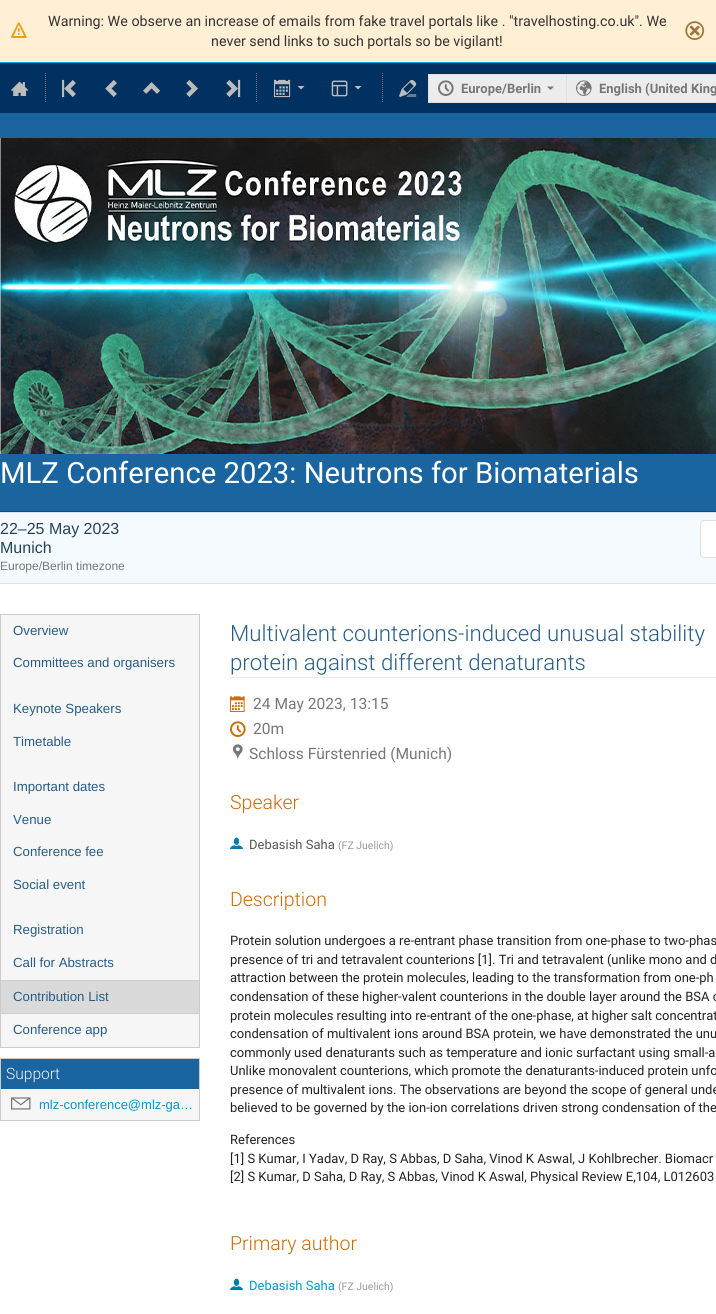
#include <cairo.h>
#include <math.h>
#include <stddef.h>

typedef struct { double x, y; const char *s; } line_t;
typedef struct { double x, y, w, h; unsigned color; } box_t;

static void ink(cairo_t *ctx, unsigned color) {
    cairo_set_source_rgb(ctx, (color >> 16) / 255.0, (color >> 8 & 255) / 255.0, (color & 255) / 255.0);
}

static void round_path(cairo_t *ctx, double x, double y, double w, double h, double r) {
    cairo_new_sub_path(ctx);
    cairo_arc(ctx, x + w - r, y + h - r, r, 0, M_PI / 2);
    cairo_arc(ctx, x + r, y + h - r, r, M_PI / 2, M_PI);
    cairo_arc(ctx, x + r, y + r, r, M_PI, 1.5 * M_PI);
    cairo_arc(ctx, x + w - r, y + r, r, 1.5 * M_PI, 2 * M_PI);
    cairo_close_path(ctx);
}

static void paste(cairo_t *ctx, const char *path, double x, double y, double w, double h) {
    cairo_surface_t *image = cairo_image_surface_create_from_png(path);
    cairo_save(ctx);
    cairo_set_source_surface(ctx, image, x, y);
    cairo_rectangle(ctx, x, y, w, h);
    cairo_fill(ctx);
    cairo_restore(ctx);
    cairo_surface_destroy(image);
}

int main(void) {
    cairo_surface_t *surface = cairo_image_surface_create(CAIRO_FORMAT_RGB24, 716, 1314);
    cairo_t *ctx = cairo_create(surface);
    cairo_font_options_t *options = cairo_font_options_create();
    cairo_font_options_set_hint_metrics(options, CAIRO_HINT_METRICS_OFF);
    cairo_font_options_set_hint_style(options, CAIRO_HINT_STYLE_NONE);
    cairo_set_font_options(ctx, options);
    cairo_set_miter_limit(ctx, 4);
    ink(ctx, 0xFFFFFF);
    cairo_paint(ctx);
    ink(ctx, 0xFFEFD4);
    cairo_rectangle(ctx, 0, 0, 716, 62);
    cairo_fill(ctx);
    paste(ctx, "media/1.png", 11, 22, 16, 16);
    cairo_select_font_face(ctx, "Roboto", CAIRO_FONT_SLANT_NORMAL, CAIRO_FONT_WEIGHT_NORMAL);
    cairo_set_font_size(ctx, 14.3);
    ink(ctx, 0x333333);
    cairo_move_to(ctx, 48, 26);
    cairo_show_text(ctx, "Warning: We observe an increase of emails from fake travel portals like . \"travelhosting.co.uk\". We");
    cairo_move_to(ctx, 211, 46);
    cairo_show_text(ctx, "never send links to such portals so be vigilant!");
    paste(ctx, "media/2.png", 685, 21, 20, 19);
    ink(ctx, 0x003161);
    cairo_rectangle(ctx, 0, 63, 716, 50);
    cairo_fill(ctx);
    ink(ctx, 0x00A1DF);
    cairo_rectangle(ctx, 0, 62, 716, 1);
    cairo_fill(ctx);
    paste(ctx, "media/3.png", 11, 81, 18, 15);
    cairo_new_path(ctx);
    cairo_move_to(ctx, 45.5, 73);
    cairo_line_to(ctx, 45.5, 103);
    ink(ctx, 0x777777);
    cairo_set_line_width(ctx, 1);
    cairo_set_dash(ctx, (double[]){1, 1}, 2, 0);
    cairo_stroke(ctx);
    paste(ctx, "media/4.png", 62, 79, 14, 19);
    paste(ctx, "media/5.png", 105, 80, 12, 17);
    paste(ctx, "media/6.png", 143, 82, 18, 12);
    paste(ctx, "media/7.png", 186, 80, 12, 17);
    paste(ctx, "media/8.png", 226, 79, 15, 19);
    cairo_new_path(ctx);
    cairo_move_to(ctx, 256.5, 73);
    cairo_line_to(ctx, 256.5, 103);
    cairo_stroke(ctx);
    paste(ctx, "media/9.png", 274, 79, 17, 19);
    ink(ctx, 0xBBBBBB);
    cairo_new_path(ctx);
    cairo_move_to(ctx, 297.5, 86);
    cairo_line_to(ctx, 301, 89.5);
    cairo_line_to(ctx, 304.5, 86);
    cairo_close_path(ctx);
    cairo_fill(ctx);
    paste(ctx, "media/10.png", 331, 80, 17, 17);
    cairo_new_path(ctx);
    cairo_move_to(ctx, 354.5, 86);
    cairo_line_to(ctx, 358, 89.5);
    cairo_line_to(ctx, 361.5, 86);
    cairo_close_path(ctx);
    cairo_fill(ctx);
    cairo_new_path(ctx);
    cairo_move_to(ctx, 382.5, 73);
    cairo_line_to(ctx, 382.5, 103);
    ink(ctx, 0x777777);
    cairo_stroke(ctx);
    paste(ctx, "media/11.png", 399, 79, 18, 18);
    {
        static const box_t items[] = {
            {429, 75, 137, 27, 0xECECEC},
            {428, 74, 138, 1, 0xDFDFDF},
            {428, 102, 138, 1, 0xDFDFDF},
            {428, 74, 1, 29, 0xDFDFDF},
        };
        for (size_t i = 0; i < sizeof items / sizeof *items; i++) {
            ink(ctx, items[i].color);
            cairo_rectangle(ctx, items[i].x, items[i].y, items[i].w, items[i].h);
            cairo_fill(ctx);
        }
    }
    paste(ctx, "media/12.png", 438, 80, 16, 16);
    cairo_select_font_face(ctx, "Roboto", CAIRO_FONT_SLANT_NORMAL, CAIRO_FONT_WEIGHT_BOLD);
    cairo_set_font_size(ctx, 13);
    ink(ctx, 0x777777);
    cairo_move_to(ctx, 461, 93);
    cairo_show_text(ctx, "Europe/Berlin");
    cairo_new_path(ctx);
    cairo_move_to(ctx, 547, 86.5);
    cairo_line_to(ctx, 550.5, 90);
    cairo_line_to(ctx, 554, 86.5);
    cairo_close_path(ctx);
    cairo_fill(ctx);
    ink(ctx, 0xECECEC);
    cairo_rectangle(ctx, 566.5, 74.5, 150, 28);
    cairo_fill_preserve(ctx);
    ink(ctx, 0xDFDFDF);
    cairo_set_dash(ctx, NULL, 0, 0);
    cairo_stroke(ctx);
    paste(ctx, "media/13.png", 576, 80, 16, 16);
    ink(ctx, 0x777777);
    cairo_move_to(ctx, 599, 93);
    cairo_show_text(ctx, "English (United King");
    ink(ctx, 0x1A64A0);
    cairo_rectangle(ctx, 0, 113, 716, 398);
    cairo_fill(ctx);
    ink(ctx, 0x0F4C80);
    cairo_rectangle(ctx, 0, 511, 716, 1);
    cairo_fill(ctx);
    paste(ctx, "media/14.png", 0, 138, 716, 316);
    cairo_select_font_face(ctx, "Roboto", CAIRO_FONT_SLANT_NORMAL, CAIRO_FONT_WEIGHT_NORMAL);
    cairo_set_font_size(ctx, 29.3);
    ink(ctx, 0xFFFFFF);
    cairo_move_to(ctx, 0, 483);
    cairo_show_text(ctx, "MLZ Conference 2023: Neutrons for Biomaterials");
    {
        static const box_t items[] = {
            {0, 513, 716, 70, 0xF5FAFF},
            {0, 512, 716, 1, 0xD5E4F1},
            {0, 583, 716, 1, 0xD5E4F1},
        };
        for (size_t i = 0; i < sizeof items / sizeof *items; i++) {
            ink(ctx, items[i].color);
            cairo_rectangle(ctx, items[i].x, items[i].y, items[i].w, items[i].h);
            cairo_fill(ctx);
        }
    }
    cairo_select_font_face(ctx, "Liberation Sans", CAIRO_FONT_SLANT_NORMAL, CAIRO_FONT_WEIGHT_NORMAL);
    cairo_set_font_size(ctx, 16);
    ink(ctx, 0x24425A);
    cairo_move_to(ctx, 0, 534);
    cairo_show_text(ctx, "22–25 May 2023");
    cairo_move_to(ctx, 0, 553);
    cairo_show_text(ctx, "Munich");
    cairo_set_font_size(ctx, 12);
    ink(ctx, 0x777777);
    cairo_move_to(ctx, 0, 570);
    cairo_show_text(ctx, "Europe/Berlin timezone");
    ink(ctx, 0xFFFFFF);
    round_path(ctx, 700, 520, 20, 38, 4);
    cairo_fill(ctx);
    round_path(ctx, 700.5, 520.5, 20, 37, 3.5);
    cairo_set_source_rgba(ctx, 0.133, 0.141, 0.149, 0.15);
    cairo_stroke(ctx);
    ink(ctx, 0xF6F6F6);
    cairo_rectangle(ctx, 0.5, 614.5, 199, 433);
    cairo_fill_preserve(ctx);
    ink(ctx, 0xCCCCCC);
    cairo_stroke(ctx);
    cairo_select_font_face(ctx, "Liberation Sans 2", CAIRO_FONT_SLANT_NORMAL, CAIRO_FONT_WEIGHT_NORMAL);
    cairo_set_font_size(ctx, 13.25);
    ink(ctx, 0x275C86);
    {
        static const line_t items[] = {
            {13, 635, "Overview"},
            {13, 667, "Committees and organisers"},
            {13, 713, "Keynote Speakers"},
            {13, 746, "Timetable"},
            {13, 791, "Important dates"},
            {13, 824, "Venue"},
            {13, 856, "Conference fee"},
            {13, 889, "Social event"},
            {13, 934, "Registration"},
            {13, 967, "Call for Abstracts"},
        };
        for (size_t i = 0; i < sizeof items / sizeof *items; i++) {
            cairo_move_to(ctx, items[i].x, items[i].y);
            cairo_show_text(ctx, items[i].s);
        }
    }
    {
        static const box_t items[] = {
            {1, 981, 198, 32, 0xDADADA},
            {1, 980, 198, 1, 0xD0D0D0},
            {1, 1013, 198, 1, 0xD0D0D0},
        };
        for (size_t i = 0; i < sizeof items / sizeof *items; i++) {
            ink(ctx, items[i].color);
            cairo_rectangle(ctx, items[i].x, items[i].y, items[i].w, items[i].h);
            cairo_fill(ctx);
        }
    }
    ink(ctx, 0x275C86);
    cairo_move_to(ctx, 13, 1001);
    cairo_show_text(ctx, "Contribution List");
    cairo_move_to(ctx, 13, 1034);
    cairo_show_text(ctx, "Conference app");
    ink(ctx, 0xF6F6F6);
    cairo_rectangle(ctx, 1, 1089, 198, 31);
    cairo_fill(ctx);
    cairo_rectangle(ctx, 0.5, 1058.5, 199, 62);
    ink(ctx, 0xCCCCCC);
    cairo_stroke(ctx);
    ink(ctx, 0x1A64A0);
    cairo_rectangle(ctx, 1, 1059, 198, 30);
    cairo_fill(ctx);
    cairo_select_font_face(ctx, "Roboto Light", CAIRO_FONT_SLANT_NORMAL, CAIRO_FONT_WEIGHT_NORMAL);
    cairo_set_font_size(ctx, 15.6);
    ink(ctx, 0xF3F3F3);
    cairo_move_to(ctx, 6, 1079);
    cairo_show_text(ctx, "Support");
    paste(ctx, "media/15.png", 11, 1097, 20, 13);
    cairo_select_font_face(ctx, "Liberation Sans", CAIRO_FONT_SLANT_NORMAL, CAIRO_FONT_WEIGHT_NORMAL);
    cairo_set_font_size(ctx, 13);
    ink(ctx, 0x0099CC);
    cairo_move_to(ctx, 39, 1109);
    cairo_show_text(ctx, "mlz-conference@mlz-ga…");
    ink(ctx, 0xEBEBEB);
    cairo_rectangle(ctx, 230, 677, 486, 1);
    cairo_fill(ctx);
    cairo_select_font_face(ctx, "Roboto Light", CAIRO_FONT_SLANT_NORMAL, CAIRO_FONT_WEIGHT_NORMAL);
    cairo_set_font_size(ctx, 22.25);
    ink(ctx, 0x275C86);
    cairo_move_to(ctx, 230, 641);
    cairo_show_text(ctx, "Multivalent counterions-induced unusual stability");
    cairo_move_to(ctx, 230, 670);
    cairo_show_text(ctx, "protein against different denaturants");
    paste(ctx, "media/16.png", 230, 696, 15, 16);
    cairo_select_font_face(ctx, "Roboto", CAIRO_FONT_SLANT_NORMAL, CAIRO_FONT_WEIGHT_NORMAL);
    cairo_set_font_size(ctx, 15.6);
    ink(ctx, 0x777777);
    cairo_move_to(ctx, 253, 709);
    cairo_show_text(ctx, "24 May 2023, 13:15");
    paste(ctx, "media/17.png", 230, 721, 16, 16);
    cairo_move_to(ctx, 253, 734);
    cairo_show_text(ctx, "20m");
    paste(ctx, "media/18.png", 232, 744, 11, 16);
    cairo_move_to(ctx, 249, 759);
    cairo_show_text(ctx, "Schloss Fürstenried (Munich)");
    cairo_select_font_face(ctx, "Roboto Light", CAIRO_FONT_SLANT_NORMAL, CAIRO_FONT_WEIGHT_NORMAL);
    cairo_set_font_size(ctx, 19.5);
    ink(ctx, 0xCB6D04);
    cairo_move_to(ctx, 230, 809);
    cairo_show_text(ctx, "Speaker");
    paste(ctx, "media/19.png", 230, 837, 13, 12);
    cairo_select_font_face(ctx, "Roboto", CAIRO_FONT_SLANT_NORMAL, CAIRO_FONT_WEIGHT_NORMAL);
    cairo_set_font_size(ctx, 13);
    ink(ctx, 0x555555);
    cairo_move_to(ctx, 249, 849);
    cairo_show_text(ctx, "Debasish Saha");
    cairo_set_font_size(ctx, 10.5);
    ink(ctx, 0x999999);
    cairo_move_to(ctx, 338, 849);
    cairo_show_text(ctx, "(FZ Juelich)");
    cairo_select_font_face(ctx, "Roboto Light", CAIRO_FONT_SLANT_NORMAL, CAIRO_FONT_WEIGHT_NORMAL);
    cairo_set_font_size(ctx, 19.5);
    ink(ctx, 0xCB6D04);
    cairo_move_to(ctx, 230, 906);
    cairo_show_text(ctx, "Description");
    cairo_select_font_face(ctx, "Roboto", CAIRO_FONT_SLANT_NORMAL, CAIRO_FONT_WEIGHT_NORMAL);
    cairo_set_font_size(ctx, 13);
    ink(ctx, 0x212121);
    {
        static const line_t items[] = {
            {230, 945, "Protein solution undergoes a re-entrant phase transition from one-phase to two-phas"},
            {230, 964, "presence of tri and tetravalent counterions [1]. Tri and tetravalent (unlike mono and d"},
            {230, 982, "attraction between the protein molecules, leading to the transformation from one-ph"},
            {230, 1001, "condensation of these higher-valent counterions in the double layer around the BSA c"},
            {230, 1020, "protein molecules resulting into re-entrant of the one-phase, at higher salt concentrat"},
            {230, 1038, "condensation of multivalent ions around BSA protein, we have demonstrated the unu"},
            {230, 1057, "commonly used denaturants such as temperature and ionic surfactant using small-a"},
            {230, 1075, "Unlike monovalent counterions, which promote the denaturants-induced protein unfo"},
            {230, 1094, "presence of multivalent ions. The observations are beyond the scope of general unde"},
            {230, 1112, "believed to be governed by the ion-ion correlations driven strong condensation of the"},
            {230, 1144, "References"},
            {230, 1163, "[1] S Kumar, I Yadav, D Ray, S Abbas, D Saha, Vinod K Aswal, J Kohlbrecher. Biomacr"},
            {230, 1181, "[2] S Kumar, D Saha, D Ray, S Abbas, Vinod K Aswal, Physical Review E,104, L012603"},
        };
        for (size_t i = 0; i < sizeof items / sizeof *items; i++) {
            cairo_move_to(ctx, items[i].x, items[i].y);
            cairo_show_text(ctx, items[i].s);
        }
    }
    cairo_select_font_face(ctx, "Roboto Light", CAIRO_FONT_SLANT_NORMAL, CAIRO_FONT_WEIGHT_NORMAL);
    cairo_set_font_size(ctx, 19.5);
    ink(ctx, 0xCB6D04);
    cairo_move_to(ctx, 230, 1250);
    cairo_show_text(ctx, "Primary author");
    paste(ctx, "media/19.png", 230, 1278, 13, 12);
    cairo_select_font_face(ctx, "Roboto", CAIRO_FONT_SLANT_NORMAL, CAIRO_FONT_WEIGHT_NORMAL);
    cairo_set_font_size(ctx, 13);
    ink(ctx, 0x0099CC);
    cairo_move_to(ctx, 249, 1290);
    cairo_show_text(ctx, "Debasish Saha");
    cairo_set_font_size(ctx, 10.5);
    ink(ctx, 0x999999);
    cairo_move_to(ctx, 338, 1290);
    cairo_show_text(ctx, "(FZ Juelich)");
    cairo_surface_write_to_png(surface, "image.png");
    cairo_font_options_destroy(options);
    cairo_destroy(ctx);
    cairo_surface_destroy(surface);
    return 0;
}
